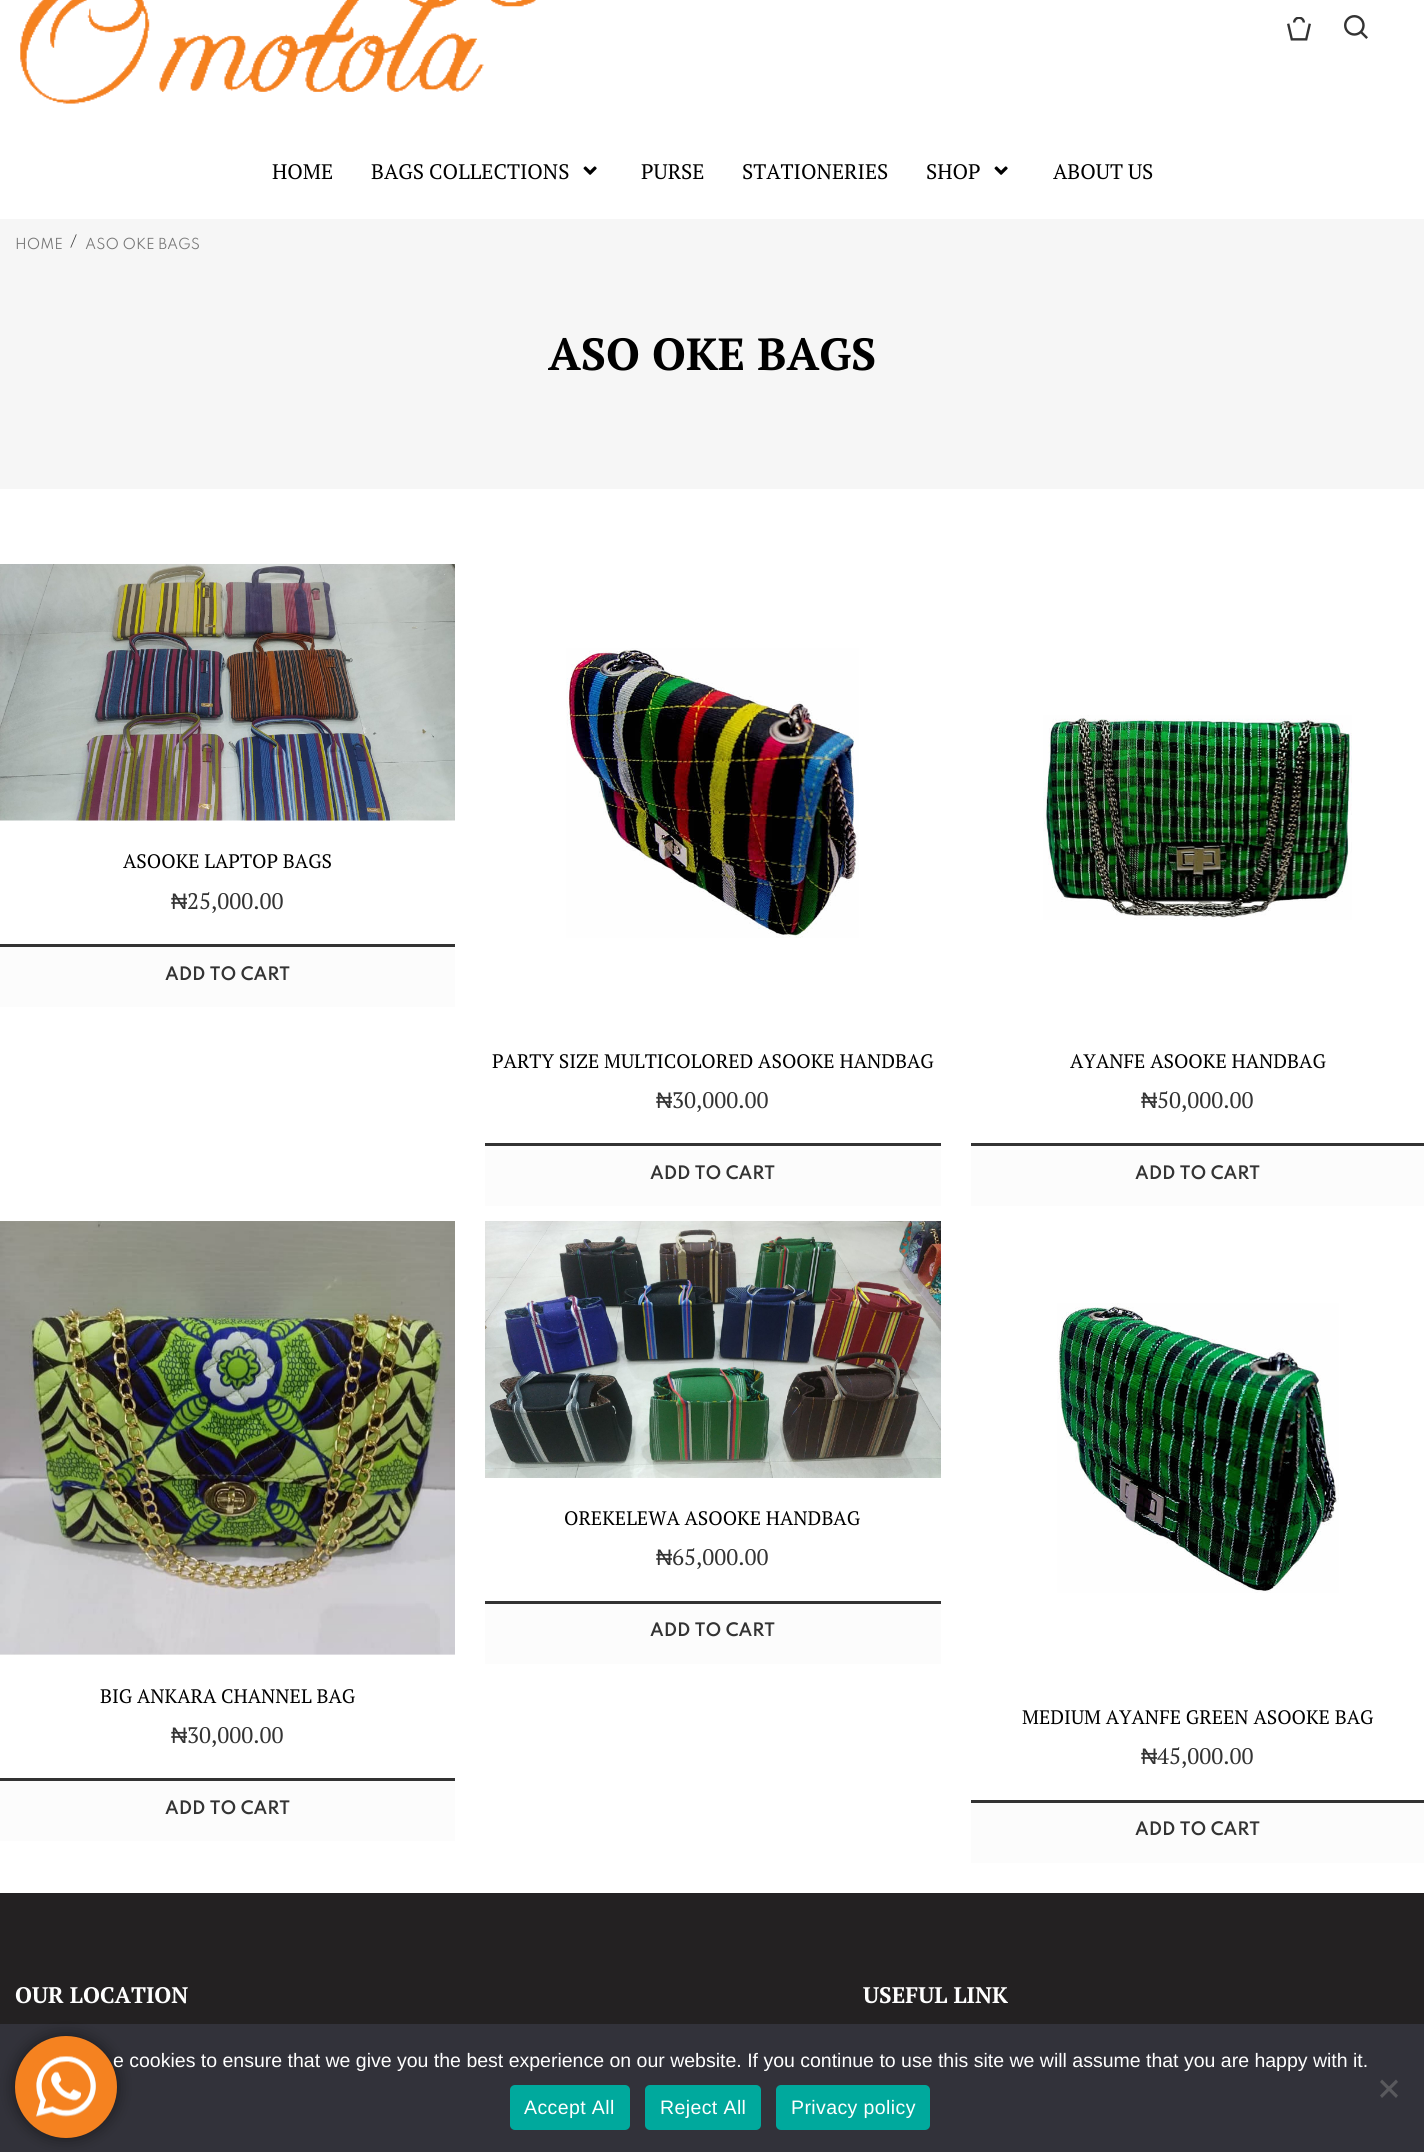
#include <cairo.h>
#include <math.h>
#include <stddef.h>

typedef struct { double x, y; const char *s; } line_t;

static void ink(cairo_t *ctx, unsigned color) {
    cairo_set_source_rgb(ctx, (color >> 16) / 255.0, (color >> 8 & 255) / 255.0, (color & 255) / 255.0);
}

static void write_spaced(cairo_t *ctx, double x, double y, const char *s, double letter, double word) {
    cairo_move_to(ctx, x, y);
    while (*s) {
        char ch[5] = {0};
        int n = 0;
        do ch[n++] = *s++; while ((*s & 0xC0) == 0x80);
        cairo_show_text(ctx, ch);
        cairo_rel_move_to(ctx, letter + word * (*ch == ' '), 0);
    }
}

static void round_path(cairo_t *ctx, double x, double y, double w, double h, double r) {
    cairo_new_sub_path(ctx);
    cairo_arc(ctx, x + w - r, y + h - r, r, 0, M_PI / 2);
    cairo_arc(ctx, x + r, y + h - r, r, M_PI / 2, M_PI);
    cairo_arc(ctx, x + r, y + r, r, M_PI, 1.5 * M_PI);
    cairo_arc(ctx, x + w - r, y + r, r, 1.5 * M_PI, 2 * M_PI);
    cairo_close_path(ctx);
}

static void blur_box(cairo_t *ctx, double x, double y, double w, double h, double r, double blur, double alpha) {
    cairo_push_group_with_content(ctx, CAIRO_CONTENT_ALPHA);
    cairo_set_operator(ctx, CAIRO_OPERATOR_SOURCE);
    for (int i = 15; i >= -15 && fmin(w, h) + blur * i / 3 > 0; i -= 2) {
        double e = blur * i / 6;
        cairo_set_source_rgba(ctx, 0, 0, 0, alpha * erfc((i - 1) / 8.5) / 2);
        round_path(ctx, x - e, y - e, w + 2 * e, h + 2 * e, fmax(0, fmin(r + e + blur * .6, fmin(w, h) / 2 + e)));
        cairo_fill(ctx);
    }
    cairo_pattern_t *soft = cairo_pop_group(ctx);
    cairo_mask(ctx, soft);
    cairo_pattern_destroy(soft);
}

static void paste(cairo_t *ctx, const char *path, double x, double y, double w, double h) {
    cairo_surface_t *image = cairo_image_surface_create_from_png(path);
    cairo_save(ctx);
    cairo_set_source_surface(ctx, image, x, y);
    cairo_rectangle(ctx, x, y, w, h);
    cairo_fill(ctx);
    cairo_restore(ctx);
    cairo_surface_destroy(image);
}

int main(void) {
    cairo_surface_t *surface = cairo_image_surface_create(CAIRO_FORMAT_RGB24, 1424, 2152);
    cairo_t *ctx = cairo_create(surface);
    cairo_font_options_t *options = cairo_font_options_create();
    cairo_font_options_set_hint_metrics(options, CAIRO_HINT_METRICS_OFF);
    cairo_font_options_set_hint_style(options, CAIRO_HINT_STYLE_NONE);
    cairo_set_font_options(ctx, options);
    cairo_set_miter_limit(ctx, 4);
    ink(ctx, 0xFFFFFF);
    cairo_paint(ctx);
    paste(ctx, "media/1.png", 20, 0, 516, 104);
    paste(ctx, "media/2.png", 1287, 17, 24, 24);
    paste(ctx, "media/3.png", 1344, 15, 24, 24);
    cairo_select_font_face(ctx, "PT Serif", CAIRO_FONT_SLANT_NORMAL, CAIRO_FONT_WEIGHT_NORMAL);
    cairo_set_font_size(ctx, 21);
    ink(ctx, 0x000000);
    cairo_move_to(ctx, 272, 179);
    cairo_show_text(ctx, "HOME");
    cairo_move_to(ctx, 371, 179);
    cairo_show_text(ctx, "BAGS COLLECTIONS");
    paste(ctx, "media/4.png", 583, 166, 14, 9);
    {
        static const line_t items[] = {
            {641, 179, "PURSE"},
            {742, 179, "STATIONERIES"},
            {926, 179, "SHOP"},
        };
        for (size_t i = 0; i < sizeof items / sizeof *items; i++) {
            cairo_move_to(ctx, items[i].x, items[i].y);
            cairo_show_text(ctx, items[i].s);
        }
    }
    paste(ctx, "media/4.png", 994, 166, 14, 9);
    cairo_move_to(ctx, 1053, 179);
    cairo_show_text(ctx, "ABOUT US");
    ink(ctx, 0xF6F6F6);
    cairo_rectangle(ctx, 0, 219, 1424, 270);
    cairo_fill(ctx);
    cairo_select_font_face(ctx, "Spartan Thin", CAIRO_FONT_SLANT_NORMAL, CAIRO_FONT_WEIGHT_NORMAL);
    cairo_set_font_size(ctx, 13.5);
    ink(ctx, 0x777777);
    cairo_move_to(ctx, 15, 249);
    cairo_show_text(ctx, "HOME");
    ink(ctx, 0x333333);
    cairo_move_to(ctx, 70, 246);
    cairo_show_text(ctx, "/");
    ink(ctx, 0x777777);
    cairo_move_to(ctx, 85, 249);
    cairo_show_text(ctx, "ASO OKE BAGS");
    cairo_select_font_face(ctx, "PT Serif", CAIRO_FONT_SLANT_NORMAL, CAIRO_FONT_WEIGHT_BOLD);
    cairo_set_font_size(ctx, 45);
    ink(ctx, 0x000000);
    cairo_move_to(ctx, 548, 370);
    cairo_show_text(ctx, "ASO OKE BAGS");
    paste(ctx, "media/5.png", 0, 564, 455, 257);
    cairo_select_font_face(ctx, "PT Serif", CAIRO_FONT_SLANT_NORMAL, CAIRO_FONT_WEIGHT_NORMAL);
    cairo_set_font_size(ctx, 19.5);
    cairo_move_to(ctx, 123, 868);
    cairo_show_text(ctx, "ASOOKE LAPTOP BAGS");
    cairo_select_font_face(ctx, "Liberation Sans", CAIRO_FONT_SLANT_NORMAL, CAIRO_FONT_WEIGHT_NORMAL);
    cairo_set_font_size(ctx, 22.5);
    ink(ctx, 0x333333);
    cairo_move_to(ctx, 171, 909);
    cairo_show_text(ctx, "₦");
    cairo_select_font_face(ctx, "PT Serif", CAIRO_FONT_SLANT_NORMAL, CAIRO_FONT_WEIGHT_NORMAL);
    cairo_move_to(ctx, 187, 909);
    cairo_show_text(ctx, "25,000.00");
    ink(ctx, 0xFCFCFC);
    cairo_rectangle(ctx, 0, 947, 455, 60);
    cairo_fill(ctx);
    ink(ctx, 0x333333);
    cairo_rectangle(ctx, 0, 944, 455, 3);
    cairo_fill(ctx);
    cairo_select_font_face(ctx, "Spartan Thin SemiBold", CAIRO_FONT_SLANT_NORMAL, CAIRO_FONT_WEIGHT_NORMAL);
    cairo_set_font_size(ctx, 16.5);
    cairo_move_to(ctx, 165, 980);
    cairo_show_text(ctx, "ADD TO CART");
    paste(ctx, "media/6.png", 566, 648, 293, 290);
    cairo_select_font_face(ctx, "PT Serif", CAIRO_FONT_SLANT_NORMAL, CAIRO_FONT_WEIGHT_NORMAL);
    cairo_set_font_size(ctx, 19.5);
    ink(ctx, 0x000000);
    cairo_move_to(ctx, 492, 1068);
    cairo_show_text(ctx, "PARTY SIZE MULTICOLORED ASOOKE HANDBAG");
    cairo_select_font_face(ctx, "Liberation Sans", CAIRO_FONT_SLANT_NORMAL, CAIRO_FONT_WEIGHT_NORMAL);
    cairo_set_font_size(ctx, 22.5);
    ink(ctx, 0x333333);
    cairo_move_to(ctx, 656, 1108);
    cairo_show_text(ctx, "₦");
    cairo_select_font_face(ctx, "PT Serif", CAIRO_FONT_SLANT_NORMAL, CAIRO_FONT_WEIGHT_NORMAL);
    cairo_move_to(ctx, 672, 1108);
    cairo_show_text(ctx, "30,000.00");
    ink(ctx, 0xFCFCFC);
    cairo_rectangle(ctx, 485, 1146, 456, 60);
    cairo_fill(ctx);
    ink(ctx, 0x333333);
    cairo_rectangle(ctx, 485, 1143, 456, 3);
    cairo_fill(ctx);
    cairo_select_font_face(ctx, "Spartan Thin SemiBold", CAIRO_FONT_SLANT_NORMAL, CAIRO_FONT_WEIGHT_NORMAL);
    cairo_set_font_size(ctx, 16.5);
    cairo_move_to(ctx, 650, 1179);
    cairo_show_text(ctx, "ADD TO CART");
    paste(ctx, "media/7.png", 1043, 715, 309, 205);
    cairo_select_font_face(ctx, "PT Serif", CAIRO_FONT_SLANT_NORMAL, CAIRO_FONT_WEIGHT_NORMAL);
    cairo_set_font_size(ctx, 19.5);
    ink(ctx, 0x000000);
    cairo_move_to(ctx, 1070, 1068);
    cairo_show_text(ctx, "AYANFE ASOOKE HANDBAG");
    cairo_select_font_face(ctx, "Liberation Sans", CAIRO_FONT_SLANT_NORMAL, CAIRO_FONT_WEIGHT_NORMAL);
    cairo_set_font_size(ctx, 22.5);
    ink(ctx, 0x333333);
    cairo_move_to(ctx, 1141, 1108);
    cairo_show_text(ctx, "₦");
    cairo_select_font_face(ctx, "PT Serif", CAIRO_FONT_SLANT_NORMAL, CAIRO_FONT_WEIGHT_NORMAL);
    cairo_move_to(ctx, 1157, 1108);
    cairo_show_text(ctx, "50,000.00");
    ink(ctx, 0xFCFCFC);
    cairo_rectangle(ctx, 971, 1146, 453, 60);
    cairo_fill(ctx);
    ink(ctx, 0x333333);
    cairo_rectangle(ctx, 971, 1143, 453, 3);
    cairo_fill(ctx);
    cairo_select_font_face(ctx, "Spartan Thin SemiBold", CAIRO_FONT_SLANT_NORMAL, CAIRO_FONT_WEIGHT_NORMAL);
    cairo_set_font_size(ctx, 16.5);
    cairo_move_to(ctx, 1135, 1179);
    cairo_show_text(ctx, "ADD TO CART");
    paste(ctx, "media/8.png", 485, 1221, 456, 257);
    cairo_select_font_face(ctx, "PT Serif", CAIRO_FONT_SLANT_NORMAL, CAIRO_FONT_WEIGHT_NORMAL);
    cairo_set_font_size(ctx, 19.5);
    ink(ctx, 0x000000);
    cairo_move_to(ctx, 564, 1525);
    cairo_show_text(ctx, "OREKELEWA ASOOKE HANDBAG");
    cairo_select_font_face(ctx, "Liberation Sans", CAIRO_FONT_SLANT_NORMAL, CAIRO_FONT_WEIGHT_NORMAL);
    cairo_set_font_size(ctx, 22.5);
    ink(ctx, 0x333333);
    cairo_move_to(ctx, 656, 1565);
    cairo_show_text(ctx, "₦");
    cairo_select_font_face(ctx, "PT Serif", CAIRO_FONT_SLANT_NORMAL, CAIRO_FONT_WEIGHT_NORMAL);
    cairo_move_to(ctx, 672, 1565);
    cairo_show_text(ctx, "65,000.00");
    ink(ctx, 0xFCFCFC);
    cairo_rectangle(ctx, 485, 1604, 456, 60);
    cairo_fill(ctx);
    ink(ctx, 0x333333);
    cairo_rectangle(ctx, 485, 1601, 456, 3);
    cairo_fill(ctx);
    cairo_select_font_face(ctx, "Spartan Thin SemiBold", CAIRO_FONT_SLANT_NORMAL, CAIRO_FONT_WEIGHT_NORMAL);
    cairo_set_font_size(ctx, 16.5);
    cairo_move_to(ctx, 650, 1636);
    cairo_show_text(ctx, "ADD TO CART");
    paste(ctx, "media/9.png", 0, 1221, 455, 434);
    cairo_select_font_face(ctx, "PT Serif", CAIRO_FONT_SLANT_NORMAL, CAIRO_FONT_WEIGHT_NORMAL);
    cairo_set_font_size(ctx, 19.5);
    ink(ctx, 0x000000);
    cairo_move_to(ctx, 100, 1703);
    cairo_show_text(ctx, "BIG ANKARA CHANNEL BAG");
    cairo_select_font_face(ctx, "Liberation Sans", CAIRO_FONT_SLANT_NORMAL, CAIRO_FONT_WEIGHT_NORMAL);
    cairo_set_font_size(ctx, 22.5);
    ink(ctx, 0x333333);
    cairo_move_to(ctx, 171, 1743);
    cairo_show_text(ctx, "₦");
    cairo_select_font_face(ctx, "PT Serif", CAIRO_FONT_SLANT_NORMAL, CAIRO_FONT_WEIGHT_NORMAL);
    cairo_move_to(ctx, 187, 1743);
    cairo_show_text(ctx, "30,000.00");
    ink(ctx, 0xFCFCFC);
    cairo_rectangle(ctx, 0, 1781, 455, 60);
    cairo_fill(ctx);
    ink(ctx, 0x333333);
    cairo_rectangle(ctx, 0, 1778, 455, 3);
    cairo_fill(ctx);
    cairo_select_font_face(ctx, "Spartan Thin SemiBold", CAIRO_FONT_SLANT_NORMAL, CAIRO_FONT_WEIGHT_NORMAL);
    cairo_set_font_size(ctx, 16.5);
    cairo_move_to(ctx, 165, 1814);
    cairo_show_text(ctx, "ADD TO CART");
    paste(ctx, "media/10.png", 1057, 1303, 282, 290);
    cairo_select_font_face(ctx, "PT Serif", CAIRO_FONT_SLANT_NORMAL, CAIRO_FONT_WEIGHT_NORMAL);
    cairo_set_font_size(ctx, 19.5);
    ink(ctx, 0x000000);
    cairo_move_to(ctx, 1022, 1724);
    cairo_show_text(ctx, "MEDIUM AYANFE GREEN ASOOKE BAG");
    cairo_select_font_face(ctx, "Liberation Sans", CAIRO_FONT_SLANT_NORMAL, CAIRO_FONT_WEIGHT_NORMAL);
    cairo_set_font_size(ctx, 22.5);
    ink(ctx, 0x333333);
    cairo_move_to(ctx, 1141, 1764);
    cairo_show_text(ctx, "₦");
    cairo_select_font_face(ctx, "PT Serif", CAIRO_FONT_SLANT_NORMAL, CAIRO_FONT_WEIGHT_NORMAL);
    cairo_move_to(ctx, 1157, 1764);
    cairo_show_text(ctx, "45,000.00");
    ink(ctx, 0xFCFCFC);
    cairo_rectangle(ctx, 971, 1803, 453, 60);
    cairo_fill(ctx);
    ink(ctx, 0x333333);
    cairo_rectangle(ctx, 971, 1800, 453, 3);
    cairo_fill(ctx);
    cairo_select_font_face(ctx, "Spartan Thin SemiBold", CAIRO_FONT_SLANT_NORMAL, CAIRO_FONT_WEIGHT_NORMAL);
    cairo_set_font_size(ctx, 16.5);
    cairo_move_to(ctx, 1135, 1835);
    cairo_show_text(ctx, "ADD TO CART");
    ink(ctx, 0x232122);
    cairo_rectangle(ctx, 0, 1893, 1424, 131);
    cairo_fill(ctx);
    cairo_select_font_face(ctx, "PT Serif", CAIRO_FONT_SLANT_NORMAL, CAIRO_FONT_WEIGHT_BOLD);
    cairo_set_font_size(ctx, 22.5);
    ink(ctx, 0xFFFFFF);
    cairo_move_to(ctx, 15, 2003);
    cairo_show_text(ctx, "OUR LOCATION");
    cairo_move_to(ctx, 863, 2003);
    cairo_show_text(ctx, "USEFUL LINK");
    ink(ctx, 0x32323A);
    cairo_rectangle(ctx, 0, 2024, 1424, 128);
    cairo_fill(ctx);
    ink(ctx, 0x000000);
    blur_box(ctx, 15, 2036, 102, 102, 51, 8, 0.5);
    cairo_select_font_face(ctx, "Liberation Sans", CAIRO_FONT_SLANT_NORMAL, CAIRO_FONT_WEIGHT_NORMAL);
    cairo_set_font_size(ctx, 19.5);
    ink(ctx, 0xFFFFFF);
    cairo_move_to(ctx, 113, 2067);
    cairo_show_text(ctx, "e cookies to ensure that we give you the best experience on our website. If you continue to use this site we will assume that you are happy with it.");
    ink(ctx, 0xF58220);
    cairo_new_path(ctx);
    cairo_arc(ctx, 66, 2087, 51, 0, 2 * M_PI);
    cairo_fill(ctx);
    paste(ctx, "media/11.png", 36, 2056, 60, 61);
    ink(ctx, 0x59595D);
    cairo_new_path(ctx);
    cairo_move_to(ctx, 1396, 2079.5);
    cairo_line_to(ctx, 1398, 2082);
    cairo_line_to(ctx, 1382, 2098);
    cairo_line_to(ctx, 1380, 2095.5);
    cairo_close_path(ctx);
    cairo_fill(ctx);
    cairo_new_path(ctx);
    cairo_move_to(ctx, 1380, 2082);
    cairo_line_to(ctx, 1382, 2079.5);
    cairo_line_to(ctx, 1398, 2095.5);
    cairo_line_to(ctx, 1396, 2098);
    cairo_close_path(ctx);
    cairo_fill(ctx);
    ink(ctx, 0x00A99D);
    round_path(ctx, 510, 2085, 120, 45, 5);
    cairo_fill(ctx);
    ink(ctx, 0xFFFFFF);
    write_spaced(ctx, 524, 2114, "Accept All", 0.4, 0);
    ink(ctx, 0x00A99D);
    round_path(ctx, 645, 2085, 116, 45, 5);
    cairo_fill(ctx);
    ink(ctx, 0xFFFFFF);
    write_spaced(ctx, 660, 2114, "Reject All", 0.4, 0);
    ink(ctx, 0x00A99D);
    round_path(ctx, 776, 2085, 154, 45, 5);
    cairo_fill(ctx);
    ink(ctx, 0xFFFFFF);
    write_spaced(ctx, 791, 2114, "Privacy policy", 0.4, 0);
    cairo_surface_write_to_png(surface, "image.png");
    cairo_font_options_destroy(options);
    cairo_destroy(ctx);
    cairo_surface_destroy(surface);
    return 0;
}
